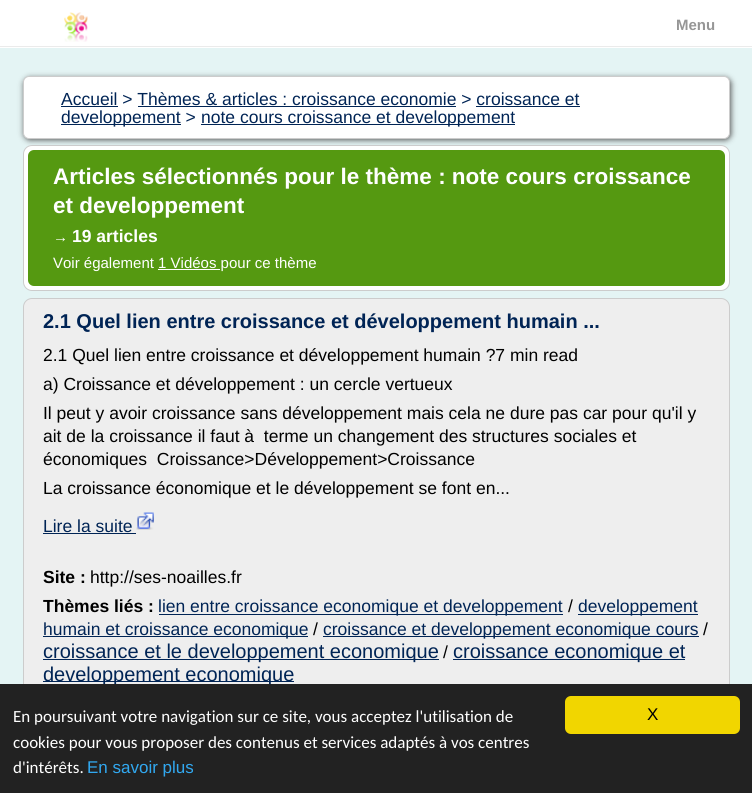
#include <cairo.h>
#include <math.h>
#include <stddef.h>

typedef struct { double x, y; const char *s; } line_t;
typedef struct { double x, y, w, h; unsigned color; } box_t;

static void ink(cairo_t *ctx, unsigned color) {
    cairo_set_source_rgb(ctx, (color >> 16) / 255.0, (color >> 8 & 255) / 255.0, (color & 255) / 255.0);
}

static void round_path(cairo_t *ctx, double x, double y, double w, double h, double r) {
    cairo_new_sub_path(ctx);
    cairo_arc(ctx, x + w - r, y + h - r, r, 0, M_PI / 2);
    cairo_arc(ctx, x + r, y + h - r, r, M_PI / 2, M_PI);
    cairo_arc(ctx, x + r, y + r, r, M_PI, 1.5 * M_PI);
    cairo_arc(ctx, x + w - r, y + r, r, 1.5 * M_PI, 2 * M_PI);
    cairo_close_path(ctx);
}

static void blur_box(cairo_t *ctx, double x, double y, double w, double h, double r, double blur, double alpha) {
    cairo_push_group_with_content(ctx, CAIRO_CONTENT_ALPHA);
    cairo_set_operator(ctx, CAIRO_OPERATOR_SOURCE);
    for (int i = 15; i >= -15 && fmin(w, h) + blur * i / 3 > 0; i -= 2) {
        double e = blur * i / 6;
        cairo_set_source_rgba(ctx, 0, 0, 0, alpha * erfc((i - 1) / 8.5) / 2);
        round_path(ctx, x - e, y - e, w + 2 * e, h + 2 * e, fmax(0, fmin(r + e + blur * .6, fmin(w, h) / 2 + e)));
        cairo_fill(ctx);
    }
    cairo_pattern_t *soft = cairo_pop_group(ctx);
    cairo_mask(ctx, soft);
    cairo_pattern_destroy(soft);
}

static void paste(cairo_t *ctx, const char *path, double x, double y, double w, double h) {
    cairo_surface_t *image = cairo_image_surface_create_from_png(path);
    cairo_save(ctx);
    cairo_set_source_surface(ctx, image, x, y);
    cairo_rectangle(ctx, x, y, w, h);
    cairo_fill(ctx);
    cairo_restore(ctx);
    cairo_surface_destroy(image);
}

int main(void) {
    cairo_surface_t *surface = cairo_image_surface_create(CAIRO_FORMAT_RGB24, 752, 793);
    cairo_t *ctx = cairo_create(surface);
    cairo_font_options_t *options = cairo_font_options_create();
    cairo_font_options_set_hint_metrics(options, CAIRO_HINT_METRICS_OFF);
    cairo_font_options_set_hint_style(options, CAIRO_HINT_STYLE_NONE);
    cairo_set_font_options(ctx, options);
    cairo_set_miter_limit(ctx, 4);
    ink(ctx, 0xE4F4F4);
    cairo_paint(ctx);
    ink(ctx, 0xFFFFFF);
    cairo_rectangle(ctx, 0, 0, 752, 48);
    cairo_fill(ctx);
    ink(ctx, 0xEBEBEB);
    cairo_rectangle(ctx, 0, 46, 752, 1);
    cairo_fill(ctx);
    paste(ctx, "media/1.png", 64, 12, 24, 30);
    cairo_select_font_face(ctx, "Liberation Sans", CAIRO_FONT_SLANT_NORMAL, CAIRO_FONT_WEIGHT_BOLD);
    cairo_set_font_size(ctx, 15);
    ink(ctx, 0x969696);
    cairo_move_to(ctx, 676, 30);
    cairo_show_text(ctx, "Menu");
    ink(ctx, 0x555555);
    blur_box(ctx, 24, 78, 707, 62, 6, 3, 1);
    ink(ctx, 0xFFFFFF);
    round_path(ctx, 23.5, 76.5, 706, 62, 5.5);
    cairo_fill_preserve(ctx);
    ink(ctx, 0xCCCCCC);
    cairo_set_line_width(ctx, 1);
    cairo_stroke(ctx);
    cairo_select_font_face(ctx, "Liberation Sans", CAIRO_FONT_SLANT_NORMAL, CAIRO_FONT_WEIGHT_NORMAL);
    cairo_set_font_size(ctx, 17.5);
    ink(ctx, 0x002455);
    cairo_move_to(ctx, 61, 105);
    cairo_show_text(ctx, "Accueil > Thèmes & articles : croissance economie > croissance et");
    {
        static const box_t items[] = {
            {61, 106, 57, 1, 0x002455},
            {138, 106, 318, 1, 0x002455},
            {61, 124, 120, 1, 0x002455},
        };
        for (size_t i = 0; i < sizeof items / sizeof *items; i++) {
            ink(ctx, items[i].color);
            cairo_rectangle(ctx, items[i].x, items[i].y, items[i].w, items[i].h);
            cairo_fill(ctx);
        }
    }
    cairo_move_to(ctx, 61, 123);
    cairo_show_text(ctx, "developpement >");
    cairo_rectangle(ctx, 476, 106, 104, 1);
    cairo_fill(ctx);
    cairo_rectangle(ctx, 201, 124, 314, 1);
    cairo_fill(ctx);
    cairo_move_to(ctx, 201, 123);
    cairo_show_text(ctx, "note cours croissance et developpement");
    ink(ctx, 0xFFFFFF);
    round_path(ctx, 23.5, 145.5, 706, 145, 8.5);
    cairo_fill_preserve(ctx);
    ink(ctx, 0xCCCCCC);
    cairo_stroke(ctx);
    ink(ctx, 0x559911);
    round_path(ctx, 28, 150, 697, 136, 6);
    cairo_fill(ctx);
    cairo_select_font_face(ctx, "Liberation Sans", CAIRO_FONT_SLANT_NORMAL, CAIRO_FONT_WEIGHT_BOLD);
    cairo_set_font_size(ctx, 22.5);
    ink(ctx, 0xFFFFFF);
    cairo_move_to(ctx, 53, 184);
    cairo_show_text(ctx, "Articles sélectionnés pour le thème : note cours croissance");
    cairo_move_to(ctx, 53, 213);
    cairo_show_text(ctx, "et developpement");
    cairo_select_font_face(ctx, "Liberation Sans", CAIRO_FONT_SLANT_NORMAL, CAIRO_FONT_WEIGHT_NORMAL);
    cairo_set_font_size(ctx, 15);
    cairo_move_to(ctx, 53, 242);
    cairo_show_text(ctx, "→");
    cairo_select_font_face(ctx, "Liberation Sans", CAIRO_FONT_SLANT_NORMAL, CAIRO_FONT_WEIGHT_BOLD);
    cairo_set_font_size(ctx, 17.5);
    cairo_move_to(ctx, 72, 242);
    cairo_show_text(ctx, "19 articles");
    cairo_select_font_face(ctx, "Liberation Sans", CAIRO_FONT_SLANT_NORMAL, CAIRO_FONT_WEIGHT_NORMAL);
    cairo_set_font_size(ctx, 15);
    cairo_move_to(ctx, 53, 268);
    cairo_show_text(ctx, "Voir également 1 Vidéos pour ce thème");
    cairo_rectangle(ctx, 158, 269, 62, 1);
    cairo_fill(ctx);
    ink(ctx, 0xEEEEEE);
    round_path(ctx, 23.5, 298.5, 706, 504, 8.5);
    cairo_fill_preserve(ctx);
    ink(ctx, 0xCCCCCC);
    cairo_stroke(ctx);
    cairo_select_font_face(ctx, "Liberation Sans", CAIRO_FONT_SLANT_NORMAL, CAIRO_FONT_WEIGHT_BOLD);
    cairo_set_font_size(ctx, 20);
    ink(ctx, 0x002455);
    cairo_move_to(ctx, 43, 328);
    cairo_show_text(ctx, "2.1 Quel lien entre croissance et développement humain ...");
    cairo_select_font_face(ctx, "Liberation Sans", CAIRO_FONT_SLANT_NORMAL, CAIRO_FONT_WEIGHT_NORMAL);
    cairo_set_font_size(ctx, 17.5);
    ink(ctx, 0x000000);
    {
        static const line_t items[] = {
            {43, 361, "2.1 Quel lien entre croissance et développement humain ?7 min read"},
            {43, 390, "a) Croissance et développement : un cercle vertueux"},
            {43, 419, "Il peut y avoir croissance sans développement mais cela ne dure pas car pour qu'il y"},
            {43, 442, "ait de la croissance il faut à  terme un changement des structures sociales et"},
            {43, 465, "économiques  Croissance>Développement>Croissance"},
            {43, 494, "La croissance économique et le développement se font en..."},
        };
        for (size_t i = 0; i < sizeof items / sizeof *items; i++) {
            cairo_move_to(ctx, items[i].x, items[i].y);
            cairo_show_text(ctx, items[i].s);
        }
    }
    ink(ctx, 0x002455);
    cairo_move_to(ctx, 43, 532);
    cairo_show_text(ctx, "Lire la suite");
    cairo_rectangle(ctx, 43, 533, 93, 1);
    cairo_fill(ctx);
    paste(ctx, "media/2.png", 136, 512, 18, 18);
    cairo_select_font_face(ctx, "Liberation Sans", CAIRO_FONT_SLANT_NORMAL, CAIRO_FONT_WEIGHT_BOLD);
    ink(ctx, 0x000000);
    cairo_move_to(ctx, 43, 583);
    cairo_show_text(ctx, "Site :");
    cairo_select_font_face(ctx, "Liberation Sans", CAIRO_FONT_SLANT_NORMAL, CAIRO_FONT_WEIGHT_NORMAL);
    cairo_move_to(ctx, 90, 583);
    cairo_show_text(ctx, "http://ses-noailles.fr");
    cairo_select_font_face(ctx, "Liberation Sans", CAIRO_FONT_SLANT_NORMAL, CAIRO_FONT_WEIGHT_BOLD);
    cairo_move_to(ctx, 43, 612);
    cairo_show_text(ctx, "Thèmes liés :");
    ink(ctx, 0x002455);
    cairo_rectangle(ctx, 159, 614, 404, 1);
    cairo_fill(ctx);
    cairo_select_font_face(ctx, "Liberation Sans", CAIRO_FONT_SLANT_NORMAL, CAIRO_FONT_WEIGHT_NORMAL);
    cairo_move_to(ctx, 158, 612);
    cairo_show_text(ctx, "lien entre croissance economique et developpement");
    ink(ctx, 0x000000);
    cairo_move_to(ctx, 568, 612);
    cairo_show_text(ctx, "/");
    ink(ctx, 0x002455);
    cairo_rectangle(ctx, 578, 614, 120, 1);
    cairo_fill(ctx);
    cairo_move_to(ctx, 578, 612);
    cairo_show_text(ctx, "developpement");
    cairo_rectangle(ctx, 43, 636, 265, 1);
    cairo_fill(ctx);
    cairo_move_to(ctx, 43, 635);
    cairo_show_text(ctx, "humain et croissance economique");
    ink(ctx, 0x000000);
    cairo_move_to(ctx, 313, 635);
    cairo_show_text(ctx, "/");
    ink(ctx, 0x002455);
    cairo_rectangle(ctx, 323, 636, 376, 1);
    cairo_fill(ctx);
    cairo_move_to(ctx, 323, 635);
    cairo_show_text(ctx, "croissance et developpement economique cours");
    ink(ctx, 0x000000);
    cairo_move_to(ctx, 703, 635);
    cairo_show_text(ctx, "/");
    ink(ctx, 0x002455);
    cairo_rectangle(ctx, 43, 659, 396, 1);
    cairo_fill(ctx);
    cairo_set_font_size(ctx, 20);
    cairo_move_to(ctx, 43, 658);
    cairo_show_text(ctx, "croissance et le developpement economique");
    cairo_set_font_size(ctx, 17.5);
    ink(ctx, 0x000000);
    cairo_move_to(ctx, 443, 658);
    cairo_show_text(ctx, "/");
    ink(ctx, 0x002455);
    cairo_rectangle(ctx, 453, 659, 232, 1);
    cairo_fill(ctx);
    cairo_set_font_size(ctx, 20);
    cairo_move_to(ctx, 453, 658);
    cairo_show_text(ctx, "croissance economique et");
    cairo_rectangle(ctx, 43, 681, 251, 1);
    cairo_fill(ctx);
    cairo_move_to(ctx, 43, 681);
    cairo_show_text(ctx, "developpement economique");
    ink(ctx, 0x222222);
    cairo_rectangle(ctx, 0, 684, 752, 109);
    cairo_fill(ctx);
    cairo_select_font_face(ctx, "Carlito", CAIRO_FONT_SLANT_NORMAL, CAIRO_FONT_WEIGHT_NORMAL);
    cairo_set_font_size(ctx, 17);
    ink(ctx, 0xFFFFFF);
    {
        static const line_t items[] = {
            {13, 722, "En poursuivant votre navigation sur ce site, vous acceptez l'utilisation de"},
            {13, 748, "cookies pour vous proposer des contenus et services adaptés à vos centres"},
            {13, 773, "d'intérêts."},
        };
        for (size_t i = 0; i < sizeof items / sizeof *items; i++) {
            cairo_move_to(ctx, items[i].x, items[i].y);
            cairo_show_text(ctx, items[i].s);
        }
    }
    cairo_select_font_face(ctx, "Liberation Sans", CAIRO_FONT_SLANT_NORMAL, CAIRO_FONT_WEIGHT_NORMAL);
    ink(ctx, 0x31A8F0);
    cairo_move_to(ctx, 87, 773);
    cairo_show_text(ctx, "En savoir plus");
    ink(ctx, 0xF1D600);
    round_path(ctx, 565, 696, 175, 38, 6);
    cairo_fill(ctx);
    ink(ctx, 0x000000);
    cairo_move_to(ctx, 647, 720);
    cairo_show_text(ctx, "X");
    cairo_surface_write_to_png(surface, "image.png");
    cairo_font_options_destroy(options);
    cairo_destroy(ctx);
    cairo_surface_destroy(surface);
    return 0;
}
